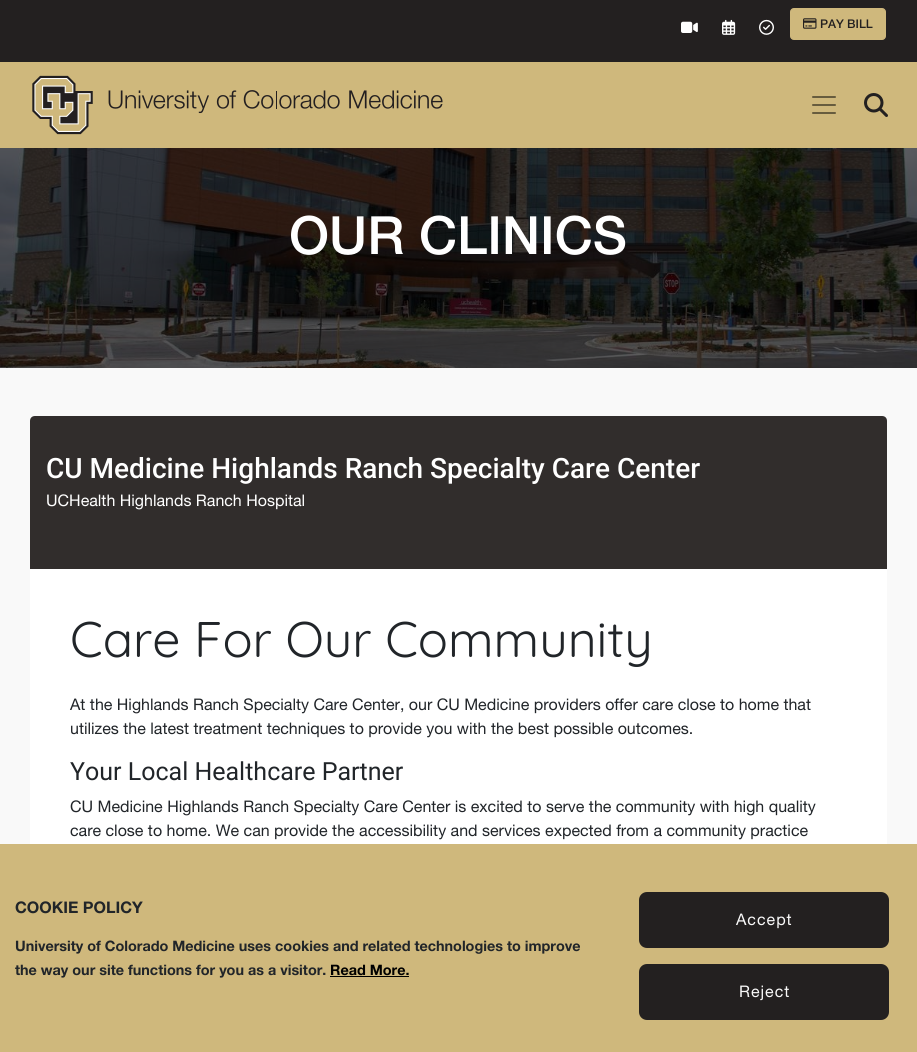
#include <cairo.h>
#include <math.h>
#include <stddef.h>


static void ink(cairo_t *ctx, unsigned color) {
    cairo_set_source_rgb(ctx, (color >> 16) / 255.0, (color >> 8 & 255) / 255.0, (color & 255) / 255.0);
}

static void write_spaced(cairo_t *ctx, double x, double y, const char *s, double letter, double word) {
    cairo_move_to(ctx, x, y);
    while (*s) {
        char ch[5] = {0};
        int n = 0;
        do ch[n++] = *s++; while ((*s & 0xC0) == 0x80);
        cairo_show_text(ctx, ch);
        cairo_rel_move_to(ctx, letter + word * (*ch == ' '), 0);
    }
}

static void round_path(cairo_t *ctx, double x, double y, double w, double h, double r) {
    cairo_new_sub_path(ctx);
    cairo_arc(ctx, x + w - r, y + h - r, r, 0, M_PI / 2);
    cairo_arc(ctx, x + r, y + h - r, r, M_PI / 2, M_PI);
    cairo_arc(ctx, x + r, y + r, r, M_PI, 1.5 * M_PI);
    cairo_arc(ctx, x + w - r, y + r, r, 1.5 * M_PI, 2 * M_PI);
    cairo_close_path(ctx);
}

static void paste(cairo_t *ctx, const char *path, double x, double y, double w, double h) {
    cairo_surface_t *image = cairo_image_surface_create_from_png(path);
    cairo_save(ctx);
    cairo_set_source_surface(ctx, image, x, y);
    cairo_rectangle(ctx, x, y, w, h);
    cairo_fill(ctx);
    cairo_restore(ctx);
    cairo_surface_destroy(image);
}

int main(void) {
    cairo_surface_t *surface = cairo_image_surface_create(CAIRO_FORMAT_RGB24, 917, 1052);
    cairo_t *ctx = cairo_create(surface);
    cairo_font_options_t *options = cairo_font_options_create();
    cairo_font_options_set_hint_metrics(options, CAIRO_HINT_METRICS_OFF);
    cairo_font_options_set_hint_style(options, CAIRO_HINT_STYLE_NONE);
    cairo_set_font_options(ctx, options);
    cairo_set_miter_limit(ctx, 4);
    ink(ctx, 0xF9F9F9);
    cairo_paint(ctx);
    ink(ctx, 0x232020);
    cairo_rectangle(ctx, 0, 0, 917, 62);
    cairo_fill(ctx);
    paste(ctx, "media/1.png", 681, 21, 17, 12);
    paste(ctx, "media/2.png", 722, 19, 14, 16);
    paste(ctx, "media/3.png", 759, 19, 15, 16);
    ink(ctx, 0xCFB87C);
    round_path(ctx, 790.5, 8.5, 95, 31, 3.5);
    cairo_fill_preserve(ctx);
    cairo_set_line_width(ctx, 1);
    cairo_stroke(ctx);
    paste(ctx, "media/4.png", 803, 18, 14, 11);
    cairo_select_font_face(ctx, "Helvetica Neue Medium", CAIRO_FONT_SLANT_NORMAL, CAIRO_FONT_WEIGHT_NORMAL);
    cairo_set_font_size(ctx, 12);
    ink(ctx, 0x232020);
    cairo_move_to(ctx, 820, 28);
    cairo_show_text(ctx, "PAY BILL");
    ink(ctx, 0xCFB87C);
    cairo_rectangle(ctx, 0, 62, 917, 86);
    cairo_fill(ctx);
    paste(ctx, "media/5.png", 32, 75, 411, 60);
    paste(ctx, "media/6.png", 812, 96, 24, 18);
    paste(ctx, "media/7.png", 864, 93, 24, 24);
    paste(ctx, "media/8.png", 0, 148, 917, 220);
    cairo_set_font_size(ctx, 52.75);
    ink(ctx, 0xFFFFFF);
    cairo_move_to(ctx, 289, 254);
    cairo_show_text(ctx, "OUR CLINICS");
    ink(ctx, 0x312D2C);
    cairo_new_path(ctx);
    cairo_move_to(ctx, 35, 416);
    cairo_line_to(ctx, 882, 416);
    cairo_curve_to(ctx, 885, 416, 887, 418, 887, 421);
    cairo_line_to(ctx, 887, 569);
    cairo_line_to(ctx, 30, 569);
    cairo_line_to(ctx, 30, 421);
    cairo_curve_to(ctx, 30, 418, 32, 416, 35, 416);
    cairo_close_path(ctx);
    cairo_fill(ctx);
    cairo_select_font_face(ctx, "Roboto Medium", CAIRO_FONT_SLANT_NORMAL, CAIRO_FONT_WEIGHT_NORMAL);
    cairo_set_font_size(ctx, 28);
    ink(ctx, 0xFFFFFF);
    cairo_move_to(ctx, 46, 478);
    cairo_show_text(ctx, "CU Medicine Highlands Ranch Specialty Care Center");
    cairo_select_font_face(ctx, "Helvetica Neue", CAIRO_FONT_SLANT_NORMAL, CAIRO_FONT_WEIGHT_NORMAL);
    cairo_set_font_size(ctx, 16);
    cairo_move_to(ctx, 46, 506);
    cairo_show_text(ctx, "UCHealth Highlands Ranch Hospital");
    cairo_rectangle(ctx, 30, 569, 857, 275);
    cairo_fill(ctx);
    cairo_select_font_face(ctx, "Quicksand", CAIRO_FONT_SLANT_NORMAL, CAIRO_FONT_WEIGHT_NORMAL);
    cairo_set_font_size(ctx, 50);
    ink(ctx, 0x212529);
    cairo_move_to(ctx, 70, 657);
    cairo_show_text(ctx, "Care For Our Community");
    cairo_select_font_face(ctx, "Helvetica Neue", CAIRO_FONT_SLANT_NORMAL, CAIRO_FONT_WEIGHT_NORMAL);
    cairo_set_font_size(ctx, 16);
    cairo_move_to(ctx, 70, 710);
    cairo_show_text(ctx, "At the Highlands Ranch Specialty Care Center, our CU Medicine providers offer care close to home that");
    cairo_move_to(ctx, 70, 734);
    cairo_show_text(ctx, "utilizes the latest treatment techniques to provide you with the best possible outcomes.");
    cairo_select_font_face(ctx, "Roboto", CAIRO_FONT_SLANT_NORMAL, CAIRO_FONT_WEIGHT_NORMAL);
    cairo_set_font_size(ctx, 25);
    cairo_move_to(ctx, 70, 780);
    cairo_show_text(ctx, "Your Local Healthcare Partner");
    cairo_select_font_face(ctx, "Helvetica Neue", CAIRO_FONT_SLANT_NORMAL, CAIRO_FONT_WEIGHT_NORMAL);
    cairo_set_font_size(ctx, 16);
    cairo_move_to(ctx, 70, 812);
    cairo_show_text(ctx, "CU Medicine Highlands Ranch Specialty Care Center is excited to serve the community with high quality");
    cairo_move_to(ctx, 70, 836);
    cairo_show_text(ctx, "care close to home. We can provide the accessibility and services expected from a community practice");
    ink(ctx, 0xCFB87C);
    cairo_rectangle(ctx, 0, 844, 917, 208);
    cairo_fill(ctx);
    cairo_select_font_face(ctx, "Helvetica Neue", CAIRO_FONT_SLANT_NORMAL, CAIRO_FONT_WEIGHT_BOLD);
    ink(ctx, 0x212529);
    cairo_move_to(ctx, 15, 913);
    cairo_show_text(ctx, "COOKIE POLICY");
    cairo_set_font_size(ctx, 14.4);
    cairo_move_to(ctx, 15, 951);
    cairo_show_text(ctx, "University of Colorado Medicine uses cookies and related technologies to improve");
    cairo_move_to(ctx, 15, 975);
    cairo_show_text(ctx, "the way our site functions for you as a visitor.");
    ink(ctx, 0x000000);
    cairo_move_to(ctx, 330, 975);
    cairo_show_text(ctx, "Read More.");
    cairo_rectangle(ctx, 330, 976, 79, 1);
    cairo_fill(ctx);
    ink(ctx, 0x232020);
    round_path(ctx, 639, 892, 250, 56, 8);
    cairo_fill(ctx);
    cairo_select_font_face(ctx, "Helvetica Neue", CAIRO_FONT_SLANT_NORMAL, CAIRO_FONT_WEIGHT_NORMAL);
    cairo_set_font_size(ctx, 16);
    ink(ctx, 0xF9F9F9);
    write_spaced(ctx, 736, 925, "Accept", 1, 0);
    ink(ctx, 0x232020);
    round_path(ctx, 639, 964, 250, 56, 8);
    cairo_fill(ctx);
    ink(ctx, 0xF9F9F9);
    write_spaced(ctx, 739, 997, "Reject", 1, 0);
    cairo_surface_write_to_png(surface, "image.png");
    cairo_font_options_destroy(options);
    cairo_destroy(ctx);
    cairo_surface_destroy(surface);
    return 0;
}
